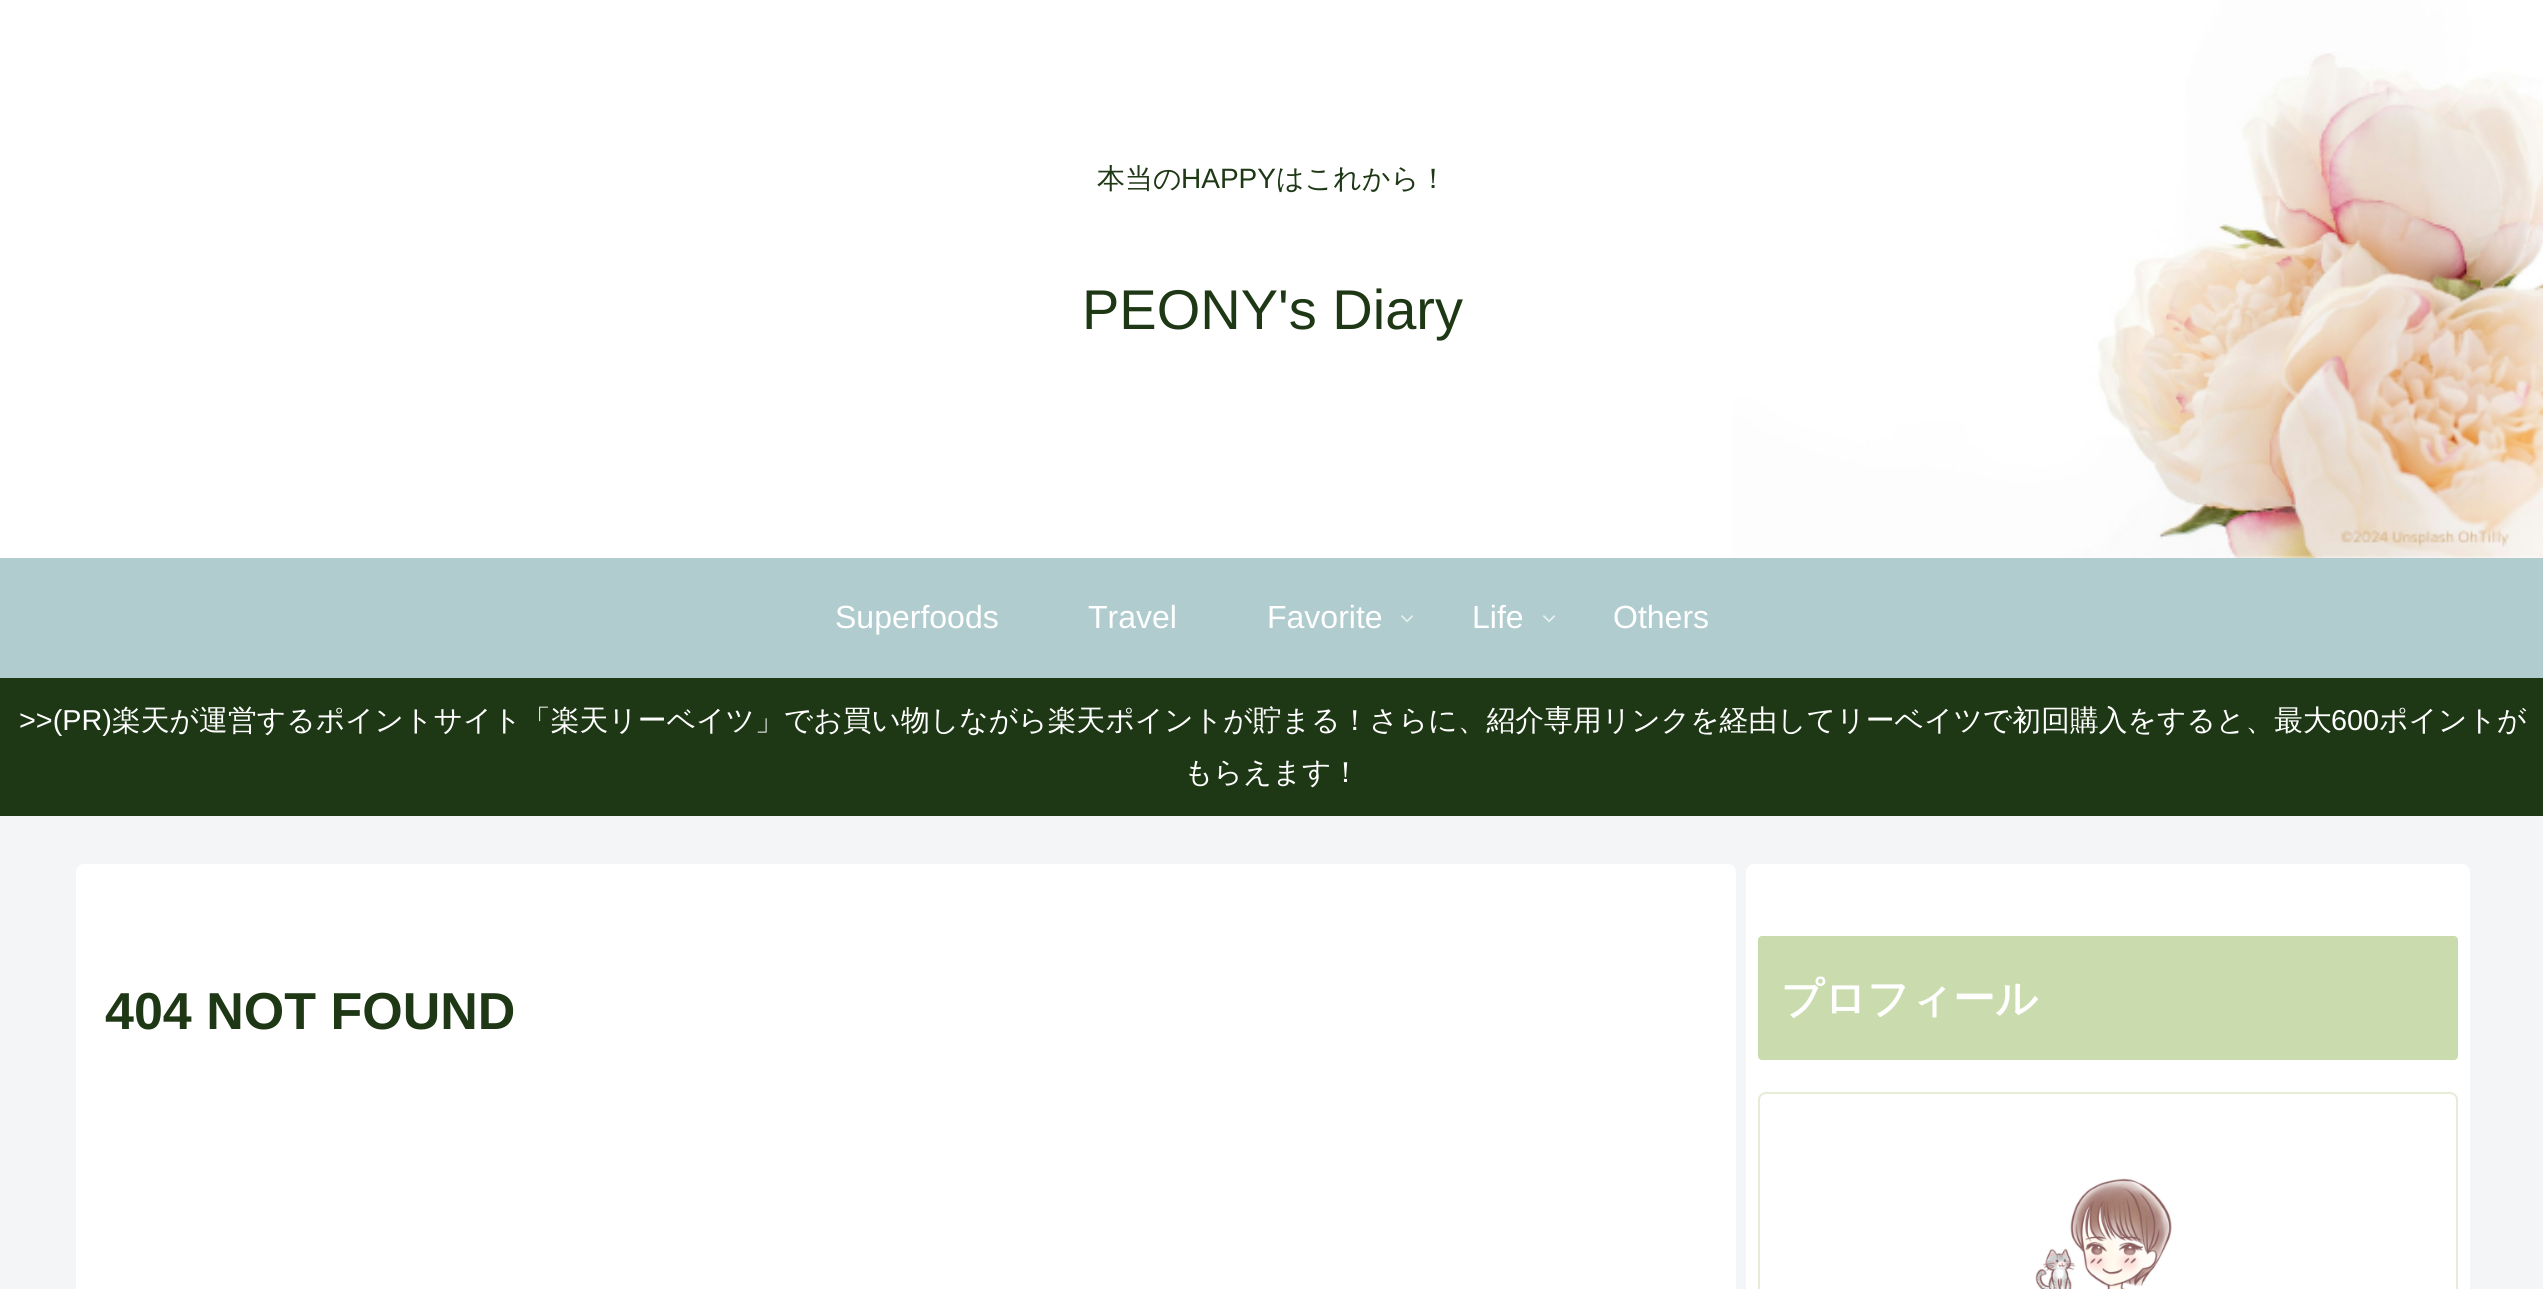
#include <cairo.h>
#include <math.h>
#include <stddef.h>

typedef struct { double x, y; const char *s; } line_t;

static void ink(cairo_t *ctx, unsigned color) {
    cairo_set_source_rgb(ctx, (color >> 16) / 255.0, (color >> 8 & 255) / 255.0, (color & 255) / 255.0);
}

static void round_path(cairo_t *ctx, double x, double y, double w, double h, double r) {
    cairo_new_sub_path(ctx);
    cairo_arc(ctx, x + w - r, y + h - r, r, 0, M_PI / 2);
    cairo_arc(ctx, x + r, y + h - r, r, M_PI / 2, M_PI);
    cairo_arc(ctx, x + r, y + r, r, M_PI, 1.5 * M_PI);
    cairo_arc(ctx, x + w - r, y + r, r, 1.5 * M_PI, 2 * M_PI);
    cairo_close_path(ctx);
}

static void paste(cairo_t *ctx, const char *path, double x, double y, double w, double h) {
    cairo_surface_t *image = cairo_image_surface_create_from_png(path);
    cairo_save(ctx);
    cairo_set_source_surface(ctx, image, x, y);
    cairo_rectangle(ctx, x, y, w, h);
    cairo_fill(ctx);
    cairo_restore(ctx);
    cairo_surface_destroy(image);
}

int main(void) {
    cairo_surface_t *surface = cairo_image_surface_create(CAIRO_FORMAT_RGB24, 2543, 1289);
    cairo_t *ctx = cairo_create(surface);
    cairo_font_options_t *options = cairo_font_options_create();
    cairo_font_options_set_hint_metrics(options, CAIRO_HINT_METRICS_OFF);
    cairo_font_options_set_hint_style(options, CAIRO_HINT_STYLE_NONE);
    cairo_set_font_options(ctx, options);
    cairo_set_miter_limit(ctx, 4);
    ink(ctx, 0xF4F5F7);
    cairo_paint(ctx);
    ink(ctx, 0xB0CCCF);
    cairo_rectangle(ctx, 0, 558, 2543, 120);
    cairo_fill(ctx);
    paste(ctx, "media/1.png", 0, 0, 2543, 558);
    cairo_select_font_face(ctx, "WenQuanYi Zen Hei Medium", CAIRO_FONT_SLANT_NORMAL, CAIRO_FONT_WEIGHT_NORMAL);
    cairo_set_font_size(ctx, 28);
    ink(ctx, 0x1E3815);
    cairo_move_to(ctx, 1097, 188);
    cairo_show_text(ctx, "本当の");
    cairo_select_font_face(ctx, "Liberation Sans", CAIRO_FONT_SLANT_NORMAL, CAIRO_FONT_WEIGHT_NORMAL);
    cairo_move_to(ctx, 1181, 188);
    cairo_show_text(ctx, "HAPPY");
    cairo_select_font_face(ctx, "WenQuanYi Zen Hei Medium", CAIRO_FONT_SLANT_NORMAL, CAIRO_FONT_WEIGHT_NORMAL);
    cairo_move_to(ctx, 1276, 188);
    cairo_show_text(ctx, "はこれから！");
    cairo_select_font_face(ctx, "Liberation Sans", CAIRO_FONT_SLANT_NORMAL, CAIRO_FONT_WEIGHT_NORMAL);
    cairo_set_font_size(ctx, 56);
    cairo_move_to(ctx, 1082, 329);
    cairo_show_text(ctx, "PEONY's Diary");
    cairo_set_font_size(ctx, 32);
    ink(ctx, 0xFFFFFF);
    {
        static const line_t items[] = {
            {835, 628, "Superfoods"},
            {1088, 628, "Travel"},
            {1267, 628, "Favorite"},
        };
        for (size_t i = 0; i < sizeof items / sizeof *items; i++) {
            cairo_move_to(ctx, items[i].x, items[i].y);
            cairo_show_text(ctx, items[i].s);
        }
    }
    paste(ctx, "media/2.png", 1401, 615, 13, 8);
    cairo_move_to(ctx, 1472, 628);
    cairo_show_text(ctx, "Life");
    paste(ctx, "media/2.png", 1543, 615, 13, 8);
    cairo_move_to(ctx, 1613, 628);
    cairo_show_text(ctx, "Others");
    ink(ctx, 0x1E3815);
    cairo_rectangle(ctx, 0, 678, 2543, 138);
    cairo_fill(ctx);
    cairo_set_font_size(ctx, 28.8);
    ink(ctx, 0xFFFFFF);
    cairo_move_to(ctx, 19, 730);
    cairo_show_text(ctx, ">>(PR)");
    cairo_select_font_face(ctx, "WenQuanYi Zen Hei Medium", CAIRO_FONT_SLANT_NORMAL, CAIRO_FONT_WEIGHT_NORMAL);
    cairo_move_to(ctx, 112, 730);
    cairo_show_text(ctx, "楽天が運営するポイントサイト「楽天リーベイツ」でお買い物しながら楽天ポイントが貯まる！さらに、紹介専用リンクを経由してリーベイツで初回購入をすると、最大");
    cairo_select_font_face(ctx, "Liberation Sans", CAIRO_FONT_SLANT_NORMAL, CAIRO_FONT_WEIGHT_NORMAL);
    cairo_move_to(ctx, 2331, 730);
    cairo_show_text(ctx, "600");
    cairo_select_font_face(ctx, "WenQuanYi Zen Hei Medium", CAIRO_FONT_SLANT_NORMAL, CAIRO_FONT_WEIGHT_NORMAL);
    cairo_move_to(ctx, 2379, 730);
    cairo_show_text(ctx, "ポイントが");
    cairo_move_to(ctx, 1184, 782);
    cairo_show_text(ctx, "もらえます！");
    round_path(ctx, 76, 864, 1660, 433, 8);
    cairo_fill(ctx);
    cairo_select_font_face(ctx, "Liberation Sans", CAIRO_FONT_SLANT_NORMAL, CAIRO_FONT_WEIGHT_BOLD);
    cairo_set_font_size(ctx, 52);
    ink(ctx, 0x1E3815);
    cairo_move_to(ctx, 105, 1029);
    cairo_show_text(ctx, "404 NOT FOUND");
    ink(ctx, 0xFFFFFF);
    round_path(ctx, 1746, 864, 724, 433, 8);
    cairo_fill(ctx);
    ink(ctx, 0xCADBAE);
    round_path(ctx, 1758, 936, 700, 124, 4);
    cairo_fill(ctx);
    cairo_select_font_face(ctx, "WenQuanYi Zen Hei", CAIRO_FONT_SLANT_NORMAL, CAIRO_FONT_WEIGHT_BOLD);
    cairo_set_font_size(ctx, 42);
    ink(ctx, 0xFFFFFF);
    cairo_move_to(ctx, 1781, 1013);
    cairo_show_text(ctx, "プロフィール");
    round_path(ctx, 1759, 1093, 698, 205, 7);
    ink(ctx, 0xE5EDD7);
    cairo_stroke(ctx);
    paste(ctx, "media/3.png", 2035, 1178, 137, 111);
    cairo_surface_write_to_png(surface, "image.png");
    cairo_font_options_destroy(options);
    cairo_destroy(ctx);
    cairo_surface_destroy(surface);
    return 0;
}
